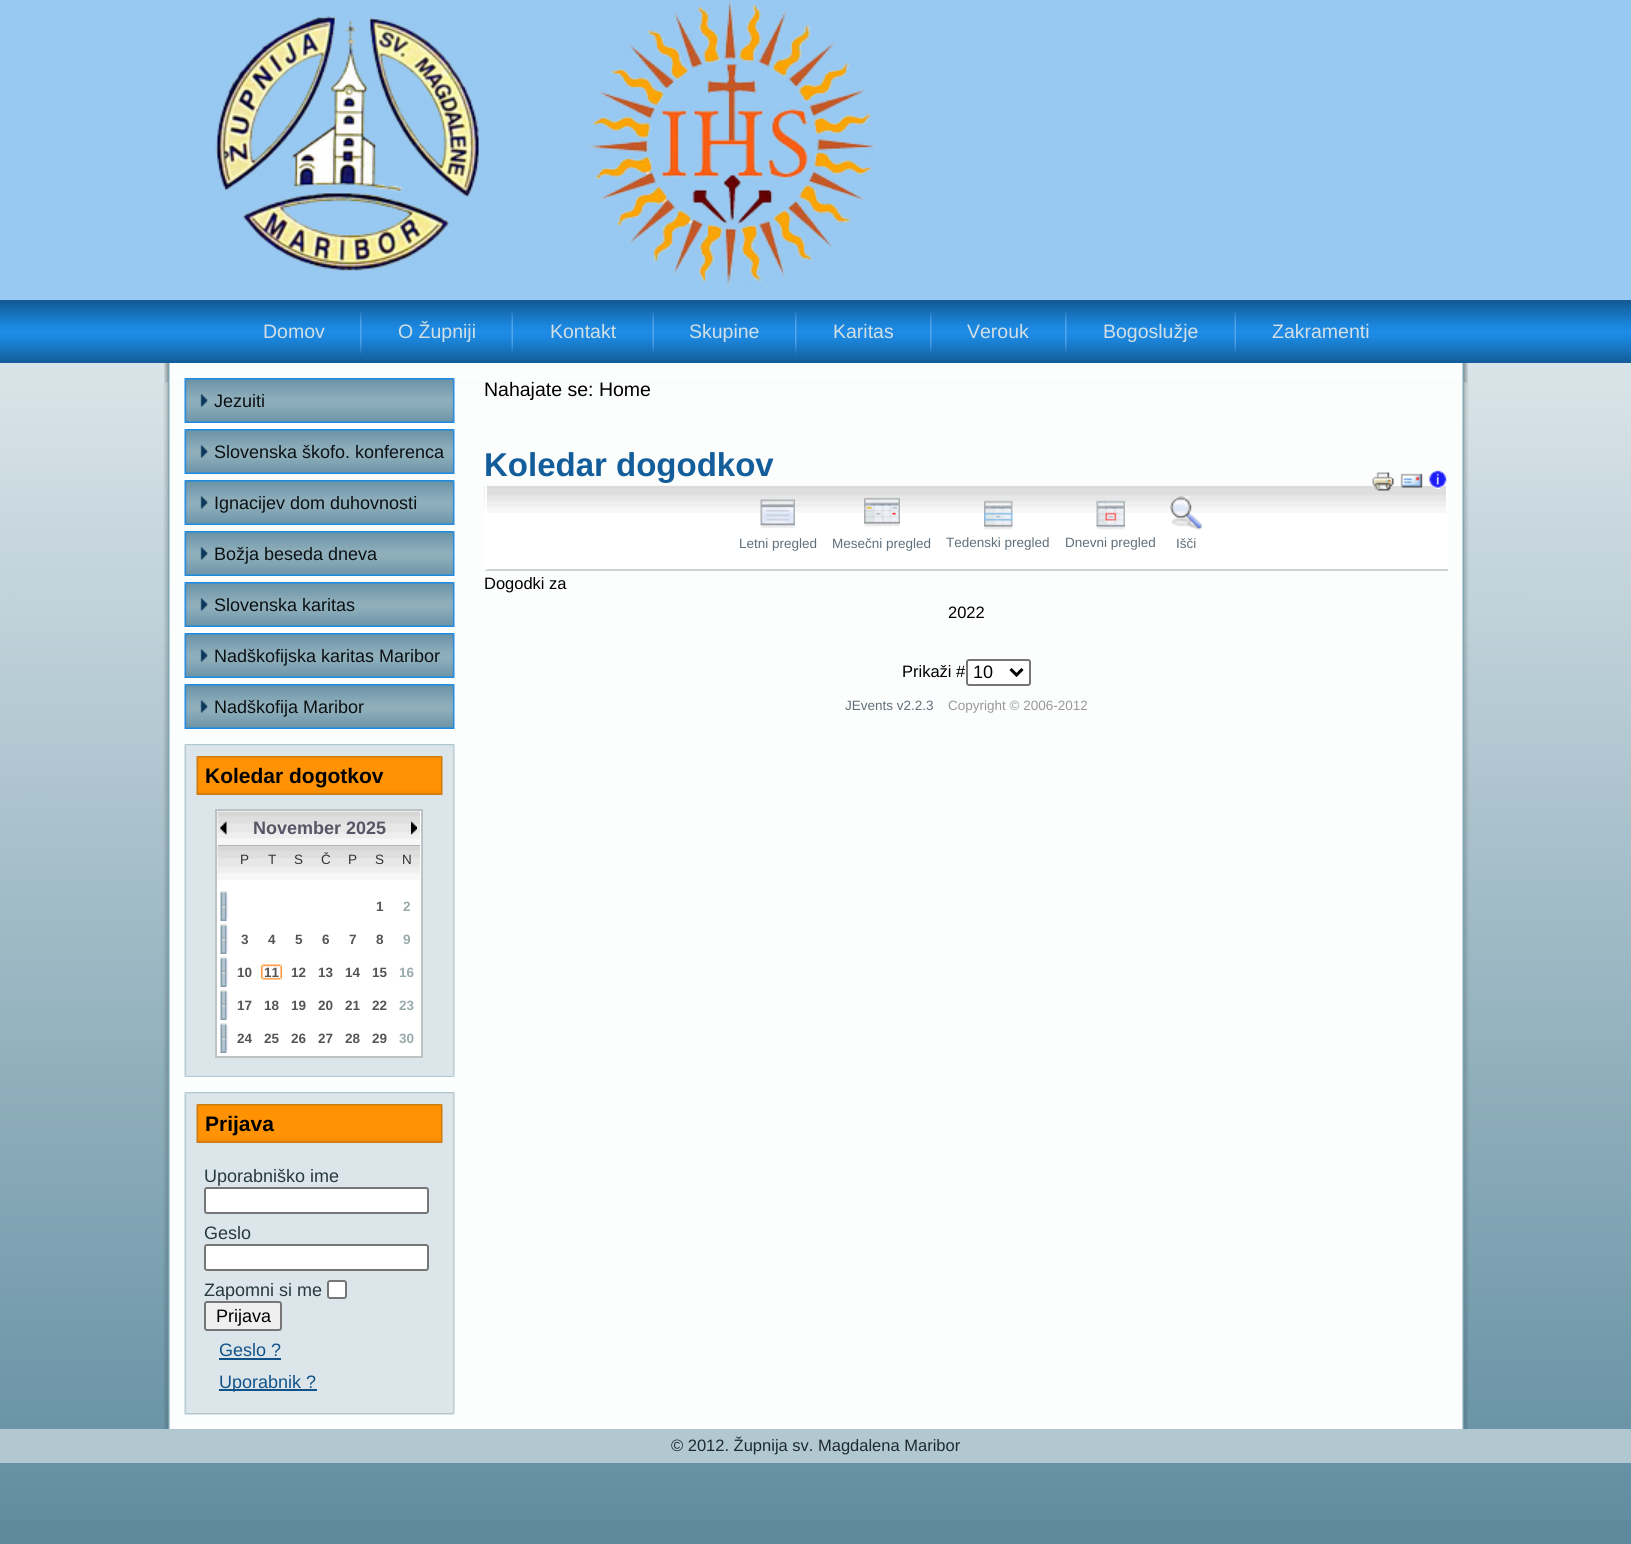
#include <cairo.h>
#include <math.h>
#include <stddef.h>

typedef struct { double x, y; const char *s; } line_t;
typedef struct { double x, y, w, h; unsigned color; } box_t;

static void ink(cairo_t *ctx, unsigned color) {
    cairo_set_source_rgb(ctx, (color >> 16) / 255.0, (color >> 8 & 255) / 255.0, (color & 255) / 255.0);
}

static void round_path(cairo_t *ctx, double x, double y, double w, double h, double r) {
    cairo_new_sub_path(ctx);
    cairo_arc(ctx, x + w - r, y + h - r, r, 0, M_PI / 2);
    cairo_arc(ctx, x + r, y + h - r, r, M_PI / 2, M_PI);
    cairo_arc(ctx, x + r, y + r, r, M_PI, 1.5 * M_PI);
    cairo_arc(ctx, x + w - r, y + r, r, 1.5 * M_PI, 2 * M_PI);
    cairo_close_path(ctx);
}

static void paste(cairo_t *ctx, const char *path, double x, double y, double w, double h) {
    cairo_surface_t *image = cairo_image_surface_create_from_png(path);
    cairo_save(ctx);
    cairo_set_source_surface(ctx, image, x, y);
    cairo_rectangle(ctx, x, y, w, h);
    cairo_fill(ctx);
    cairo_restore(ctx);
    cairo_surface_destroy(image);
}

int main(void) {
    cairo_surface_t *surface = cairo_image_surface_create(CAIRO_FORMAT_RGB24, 1631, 1544);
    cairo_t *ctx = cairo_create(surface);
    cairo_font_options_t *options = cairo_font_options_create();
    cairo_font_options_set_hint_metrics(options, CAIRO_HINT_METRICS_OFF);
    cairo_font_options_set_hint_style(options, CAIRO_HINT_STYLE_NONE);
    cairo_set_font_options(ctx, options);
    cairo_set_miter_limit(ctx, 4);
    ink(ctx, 0x5E899C);
    cairo_paint(ctx);
    paste(ctx, "media/1.png", 0, 363, 1631, 1157);
    paste(ctx, "media/2.png", 0, 0, 1631, 300);
    paste(ctx, "media/3.png", 0, 300, 1631, 63);
    cairo_select_font_face(ctx, "Liberation Sans", CAIRO_FONT_SLANT_NORMAL, CAIRO_FONT_WEIGHT_NORMAL);
    cairo_set_font_size(ctx, 19.5);
    ink(ctx, 0xD2DFE4);
    cairo_move_to(ctx, 263, 338);
    cairo_show_text(ctx, "Domov");
    paste(ctx, "media/4.png", 360, 311, 2, 43);
    cairo_move_to(ctx, 398, 338);
    cairo_show_text(ctx, "O Župniji");
    paste(ctx, "media/5.png", 511, 311, 2, 43);
    cairo_move_to(ctx, 550, 338);
    cairo_show_text(ctx, "Kontakt");
    paste(ctx, "media/5.png", 652, 311, 2, 43);
    cairo_move_to(ctx, 689, 338);
    cairo_show_text(ctx, "Skupine");
    paste(ctx, "media/4.png", 795, 311, 2, 43);
    cairo_move_to(ctx, 833, 338);
    cairo_show_text(ctx, "Karitas");
    paste(ctx, "media/4.png", 930, 311, 2, 43);
    cairo_move_to(ctx, 967, 338);
    cairo_show_text(ctx, "Verouk");
    paste(ctx, "media/4.png", 1065, 311, 2, 43);
    cairo_move_to(ctx, 1103, 338);
    cairo_show_text(ctx, "Bogoslužje");
    paste(ctx, "media/5.png", 1234, 311, 2, 43);
    cairo_move_to(ctx, 1272, 338);
    cairo_show_text(ctx, "Zakramenti");
    paste(ctx, "media/6.png", 164, 363, 1285, 1066);
    paste(ctx, "media/7.png", 164, 363, 1285, 20);
    paste(ctx, "media/42.png", 1449, 382, 20, 1028);
    paste(ctx, "media/8.png", 1449, 363, 19, 1066);
    paste(ctx, "media/9.png", 1449, 363, 19, 20);
    paste(ctx, "media/41.png", 163, 382, 1286, 1028);
    paste(ctx, "media/10.png", 184, 378, 248, 45);
    paste(ctx, "media/11.png", 432, 378, 23, 45);
    cairo_set_font_size(ctx, 18);
    ink(ctx, 0x0B1113);
    cairo_move_to(ctx, 214, 407);
    cairo_show_text(ctx, "Jezuiti");
    paste(ctx, "media/12.png", 184, 429, 248, 45);
    paste(ctx, "media/13.png", 432, 429, 23, 45);
    cairo_move_to(ctx, 214, 458);
    cairo_show_text(ctx, "Slovenska škofo. konferenca");
    paste(ctx, "media/12.png", 184, 480, 248, 45);
    paste(ctx, "media/13.png", 432, 480, 23, 45);
    cairo_move_to(ctx, 214, 509);
    cairo_show_text(ctx, "Ignacijev dom duhovnosti");
    paste(ctx, "media/12.png", 184, 531, 248, 45);
    paste(ctx, "media/13.png", 432, 531, 23, 45);
    cairo_move_to(ctx, 214, 560);
    cairo_show_text(ctx, "Božja beseda dneva");
    paste(ctx, "media/12.png", 184, 582, 248, 45);
    paste(ctx, "media/13.png", 432, 582, 23, 45);
    cairo_move_to(ctx, 214, 611);
    cairo_show_text(ctx, "Slovenska karitas");
    paste(ctx, "media/12.png", 184, 633, 248, 45);
    paste(ctx, "media/13.png", 432, 633, 23, 45);
    cairo_move_to(ctx, 214, 662);
    cairo_show_text(ctx, "Nadškofijska karitas Maribor");
    paste(ctx, "media/12.png", 184, 684, 248, 45);
    paste(ctx, "media/13.png", 432, 684, 23, 45);
    cairo_move_to(ctx, 214, 713);
    cairo_show_text(ctx, "Nadškofija Maribor");
    paste(ctx, "media/14.png", 184, 744, 269, 333);
    paste(ctx, "media/15.png", 184, 744, 269, 2);
    paste(ctx, "media/19.png", 453, 745, 2, 331);
    paste(ctx, "media/16.png", 453, 744, 2, 333);
    paste(ctx, "media/17.png", 453, 744, 2, 2);
    paste(ctx, "media/18.png", 184, 745, 269, 331);
    paste(ctx, "media/20.png", 196, 756, 245, 39);
    paste(ctx, "media/21.png", 441, 756, 2, 39);
    cairo_select_font_face(ctx, "Liberation Sans", CAIRO_FONT_SLANT_NORMAL, CAIRO_FONT_WEIGHT_BOLD);
    cairo_set_font_size(ctx, 21);
    ink(ctx, 0x000000);
    cairo_move_to(ctx, 205, 783);
    cairo_show_text(ctx, "Koledar dogotkov");
    ink(ctx, 0xFFFFFF);
    cairo_rectangle(ctx, 216, 810, 206, 247);
    cairo_fill_preserve(ctx);
    ink(ctx, 0xBEC2C3);
    cairo_stroke(ctx);
    paste(ctx, "media/22.png", 217, 811, 203, 35);
    ink(ctx, 0xB4B4B6);
    cairo_rectangle(ctx, 218, 845, 202, 1);
    cairo_fill(ctx);
    paste(ctx, "media/23.png", 220, 821, 7, 14);
    cairo_set_font_size(ctx, 18);
    ink(ctx, 0x565666);
    cairo_move_to(ctx, 253, 834);
    cairo_show_text(ctx, "November 2025");
    paste(ctx, "media/24.png", 411, 821, 6, 14);
    paste(ctx, "media/25.png", 217, 846, 203, 34);
    cairo_select_font_face(ctx, "Liberation Sans", CAIRO_FONT_SLANT_NORMAL, CAIRO_FONT_WEIGHT_NORMAL);
    cairo_set_font_size(ctx, 13.5);
    ink(ctx, 0x333333);
    {
        static const line_t items[] = {
            {240, 864, "P"},
            {268, 864, "T"},
            {294, 864, "S"},
            {321, 864, "Č"},
            {348, 864, "P"},
            {375, 864, "S"},
            {402, 864, "N"},
        };
        for (size_t i = 0; i < sizeof items / sizeof *items; i++) {
            cairo_move_to(ctx, items[i].x, items[i].y);
            cairo_show_text(ctx, items[i].s);
        }
    }
    paste(ctx, "media/26.png", 220, 891, 8, 30);
    cairo_select_font_face(ctx, "Liberation Sans", CAIRO_FONT_SLANT_NORMAL, CAIRO_FONT_WEIGHT_BOLD);
    ink(ctx, 0x555555);
    cairo_move_to(ctx, 376, 911);
    cairo_show_text(ctx, "1");
    ink(ctx, 0x99AAAA);
    cairo_move_to(ctx, 403, 911);
    cairo_show_text(ctx, "2");
    paste(ctx, "media/26.png", 220, 924, 8, 30);
    ink(ctx, 0x555555);
    {
        static const line_t items[] = {
            {241, 944, "3"},
            {268, 944, "4"},
            {295, 944, "5"},
            {322, 944, "6"},
            {349, 944, "7"},
            {376, 944, "8"},
        };
        for (size_t i = 0; i < sizeof items / sizeof *items; i++) {
            cairo_move_to(ctx, items[i].x, items[i].y);
            cairo_show_text(ctx, items[i].s);
        }
    }
    ink(ctx, 0x99AAAA);
    cairo_move_to(ctx, 403, 944);
    cairo_show_text(ctx, "9");
    paste(ctx, "media/26.png", 220, 957, 8, 30);
    ink(ctx, 0x555555);
    cairo_move_to(ctx, 237, 977);
    cairo_show_text(ctx, "10");
    paste(ctx, "media/27.png", 261, 964, 21, 16);
    {
        static const line_t items[] = {
            {264, 977, "11"},
            {291, 977, "12"},
            {318, 977, "13"},
            {345, 977, "14"},
            {372, 977, "15"},
        };
        for (size_t i = 0; i < sizeof items / sizeof *items; i++) {
            cairo_move_to(ctx, items[i].x, items[i].y);
            cairo_show_text(ctx, items[i].s);
        }
    }
    ink(ctx, 0x99AAAA);
    cairo_move_to(ctx, 399, 977);
    cairo_show_text(ctx, "16");
    paste(ctx, "media/26.png", 220, 990, 8, 30);
    ink(ctx, 0x555555);
    {
        static const line_t items[] = {
            {237, 1010, "17"},
            {264, 1010, "18"},
            {291, 1010, "19"},
            {318, 1010, "20"},
            {345, 1010, "21"},
            {372, 1010, "22"},
        };
        for (size_t i = 0; i < sizeof items / sizeof *items; i++) {
            cairo_move_to(ctx, items[i].x, items[i].y);
            cairo_show_text(ctx, items[i].s);
        }
    }
    ink(ctx, 0x99AAAA);
    cairo_move_to(ctx, 399, 1010);
    cairo_show_text(ctx, "23");
    paste(ctx, "media/26.png", 220, 1023, 8, 30);
    ink(ctx, 0x555555);
    {
        static const line_t items[] = {
            {237, 1043, "24"},
            {264, 1043, "25"},
            {291, 1043, "26"},
            {318, 1043, "27"},
            {345, 1043, "28"},
            {372, 1043, "29"},
        };
        for (size_t i = 0; i < sizeof items / sizeof *items; i++) {
            cairo_move_to(ctx, items[i].x, items[i].y);
            cairo_show_text(ctx, items[i].s);
        }
    }
    ink(ctx, 0x99AAAA);
    cairo_move_to(ctx, 399, 1043);
    cairo_show_text(ctx, "30");
    paste(ctx, "media/28.png", 184, 1092, 269, 323);
    paste(ctx, "media/15.png", 184, 1092, 269, 2);
    paste(ctx, "media/31.png", 453, 1093, 2, 320);
    paste(ctx, "media/29.png", 453, 1092, 2, 323);
    paste(ctx, "media/17.png", 453, 1092, 2, 2);
    paste(ctx, "media/30.png", 184, 1093, 269, 320);
    paste(ctx, "media/20.png", 196, 1104, 245, 39);
    paste(ctx, "media/21.png", 441, 1104, 2, 39);
    cairo_set_font_size(ctx, 21);
    ink(ctx, 0x000000);
    cairo_move_to(ctx, 205, 1131);
    cairo_show_text(ctx, "Prijava");
    cairo_select_font_face(ctx, "Liberation Sans", CAIRO_FONT_SLANT_NORMAL, CAIRO_FONT_WEIGHT_NORMAL);
    cairo_set_font_size(ctx, 18);
    ink(ctx, 0x263840);
    cairo_move_to(ctx, 204, 1182);
    cairo_show_text(ctx, "Uporabniško ime");
    ink(ctx, 0xFFFFFF);
    round_path(ctx, 205, 1188, 223, 25, 2);
    cairo_fill_preserve(ctx);
    ink(ctx, 0x767676);
    cairo_stroke(ctx);
    ink(ctx, 0x263840);
    cairo_move_to(ctx, 204, 1239);
    cairo_show_text(ctx, "Geslo");
    ink(ctx, 0xFFFFFF);
    round_path(ctx, 205, 1245, 223, 25, 2);
    cairo_fill_preserve(ctx);
    ink(ctx, 0x767676);
    cairo_stroke(ctx);
    ink(ctx, 0x263840);
    cairo_move_to(ctx, 204, 1296);
    cairo_show_text(ctx, "Zapomni si me");
    ink(ctx, 0xFFFFFF);
    round_path(ctx, 328, 1281, 18, 17, 2);
    cairo_fill_preserve(ctx);
    ink(ctx, 0x767676);
    cairo_stroke(ctx);
    ink(ctx, 0xEFEFEF);
    round_path(ctx, 205, 1302, 76, 28, 2);
    cairo_fill_preserve(ctx);
    ink(ctx, 0x767676);
    cairo_stroke(ctx);
    ink(ctx, 0x000000);
    cairo_move_to(ctx, 216, 1322);
    cairo_show_text(ctx, "Prijava");
    ink(ctx, 0x115288);
    cairo_move_to(ctx, 219, 1356);
    cairo_show_text(ctx, "Geslo ?");
    cairo_rectangle(ctx, 219, 1358, 62, 2);
    cairo_fill(ctx);
    cairo_rectangle(ctx, 219, 1389, 98, 2);
    cairo_fill(ctx);
    cairo_move_to(ctx, 219, 1388);
    cairo_show_text(ctx, "Uporabnik ?");
    cairo_set_font_size(ctx, 19.5);
    ink(ctx, 0x000000);
    cairo_move_to(ctx, 484, 396);
    cairo_show_text(ctx, "Nahajate se: Home");
    cairo_select_font_face(ctx, "Liberation Sans", CAIRO_FONT_SLANT_NORMAL, CAIRO_FONT_WEIGHT_BOLD);
    cairo_set_font_size(ctx, 33);
    ink(ctx, 0x135D9A);
    cairo_move_to(ctx, 484, 476);
    cairo_show_text(ctx, "Koledar dogodkov");
    paste(ctx, "media/35.png", 484, 485, 962, 28);
    paste(ctx, "media/32.png", 1372, 472, 22, 19);
    paste(ctx, "media/33.png", 1400, 473, 23, 15);
    ink(ctx, 0xFFFFFF);
    cairo_rectangle(ctx, 1446, 485, 2, 85);
    cairo_fill(ctx);
    paste(ctx, "media/34.png", 1429, 470, 18, 19);
    {
        static const box_t items[] = {
            {487, 513, 959, 56, 0xFFFFFF},
            {485, 569, 963, 2, 0xCED2D6},
            {485, 485, 2, 85, 0xFFFFFF},
        };
        for (size_t i = 0; i < sizeof items / sizeof *items; i++) {
            ink(ctx, items[i].color);
            cairo_rectangle(ctx, items[i].x, items[i].y, items[i].w, items[i].h);
            cairo_fill(ctx);
        }
    }
    paste(ctx, "media/36.png", 760, 499, 35, 30);
    cairo_select_font_face(ctx, "Liberation Sans", CAIRO_FONT_SLANT_NORMAL, CAIRO_FONT_WEIGHT_NORMAL);
    cairo_set_font_size(ctx, 13.5);
    ink(ctx, 0x606F79);
    cairo_move_to(ctx, 739, 548);
    cairo_show_text(ctx, "Letni pregled");
    paste(ctx, "media/37.png", 864, 497, 36, 30);
    cairo_move_to(ctx, 832, 548);
    cairo_show_text(ctx, "Mesečni pregled");
    paste(ctx, "media/38.png", 984, 500, 29, 30);
    cairo_move_to(ctx, 946, 547);
    cairo_show_text(ctx, "Tedenski pregled");
    paste(ctx, "media/39.png", 1096, 500, 29, 30);
    cairo_move_to(ctx, 1065, 547);
    cairo_show_text(ctx, "Dnevni pregled");
    paste(ctx, "media/40.png", 1170, 496, 32, 34);
    cairo_move_to(ctx, 1176, 548);
    cairo_show_text(ctx, "Išči");
    cairo_set_font_size(ctx, 16.5);
    ink(ctx, 0x000000);
    {
        static const line_t items[] = {
            {484, 589, "Dogodki za"},
            {948, 618, "2022"},
            {902, 677, "Prikaži #"},
        };
        for (size_t i = 0; i < sizeof items / sizeof *items; i++) {
            cairo_move_to(ctx, items[i].x, items[i].y);
            cairo_show_text(ctx, items[i].s);
        }
    }
    ink(ctx, 0xFFFFFF);
    round_path(ctx, 967, 660, 63, 25, 2);
    cairo_fill_preserve(ctx);
    ink(ctx, 0x767676);
    cairo_stroke(ctx);
    cairo_new_path(ctx);
    cairo_move_to(ctx, 1010.5, 669);
    cairo_line_to(ctx, 1016.5, 675);
    cairo_line_to(ctx, 1022.5, 669);
    ink(ctx, 0x000000);
    cairo_set_line_width(ctx, 3);
    cairo_stroke(ctx);
    cairo_set_font_size(ctx, 18);
    cairo_move_to(ctx, 973, 678);
    cairo_show_text(ctx, "10");
    cairo_set_font_size(ctx, 13.5);
    ink(ctx, 0x606F79);
    cairo_move_to(ctx, 845, 710);
    cairo_show_text(ctx, "JEvents v2.2.3");
    ink(ctx, 0x999999);
    cairo_move_to(ctx, 948, 710);
    cairo_show_text(ctx, "Copyright © 2006-2012");
    ink(ctx, 0xB2C8D1);
    cairo_rectangle(ctx, 0, 1429, 1631, 34);
    cairo_fill(ctx);
    cairo_set_font_size(ctx, 16.5);
    ink(ctx, 0x1D2A30);
    cairo_move_to(ctx, 671, 1451);
    cairo_show_text(ctx, "© 2012. Župnija sv. Magdalena Maribor");
    cairo_surface_write_to_png(surface, "image.png");
    cairo_font_options_destroy(options);
    cairo_destroy(ctx);
    cairo_surface_destroy(surface);
    return 0;
}
